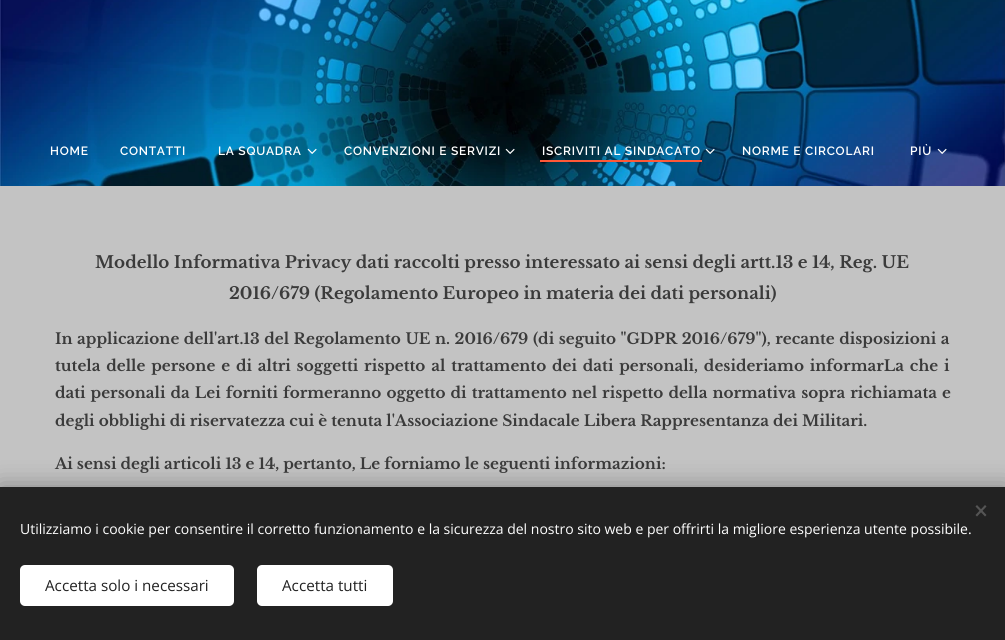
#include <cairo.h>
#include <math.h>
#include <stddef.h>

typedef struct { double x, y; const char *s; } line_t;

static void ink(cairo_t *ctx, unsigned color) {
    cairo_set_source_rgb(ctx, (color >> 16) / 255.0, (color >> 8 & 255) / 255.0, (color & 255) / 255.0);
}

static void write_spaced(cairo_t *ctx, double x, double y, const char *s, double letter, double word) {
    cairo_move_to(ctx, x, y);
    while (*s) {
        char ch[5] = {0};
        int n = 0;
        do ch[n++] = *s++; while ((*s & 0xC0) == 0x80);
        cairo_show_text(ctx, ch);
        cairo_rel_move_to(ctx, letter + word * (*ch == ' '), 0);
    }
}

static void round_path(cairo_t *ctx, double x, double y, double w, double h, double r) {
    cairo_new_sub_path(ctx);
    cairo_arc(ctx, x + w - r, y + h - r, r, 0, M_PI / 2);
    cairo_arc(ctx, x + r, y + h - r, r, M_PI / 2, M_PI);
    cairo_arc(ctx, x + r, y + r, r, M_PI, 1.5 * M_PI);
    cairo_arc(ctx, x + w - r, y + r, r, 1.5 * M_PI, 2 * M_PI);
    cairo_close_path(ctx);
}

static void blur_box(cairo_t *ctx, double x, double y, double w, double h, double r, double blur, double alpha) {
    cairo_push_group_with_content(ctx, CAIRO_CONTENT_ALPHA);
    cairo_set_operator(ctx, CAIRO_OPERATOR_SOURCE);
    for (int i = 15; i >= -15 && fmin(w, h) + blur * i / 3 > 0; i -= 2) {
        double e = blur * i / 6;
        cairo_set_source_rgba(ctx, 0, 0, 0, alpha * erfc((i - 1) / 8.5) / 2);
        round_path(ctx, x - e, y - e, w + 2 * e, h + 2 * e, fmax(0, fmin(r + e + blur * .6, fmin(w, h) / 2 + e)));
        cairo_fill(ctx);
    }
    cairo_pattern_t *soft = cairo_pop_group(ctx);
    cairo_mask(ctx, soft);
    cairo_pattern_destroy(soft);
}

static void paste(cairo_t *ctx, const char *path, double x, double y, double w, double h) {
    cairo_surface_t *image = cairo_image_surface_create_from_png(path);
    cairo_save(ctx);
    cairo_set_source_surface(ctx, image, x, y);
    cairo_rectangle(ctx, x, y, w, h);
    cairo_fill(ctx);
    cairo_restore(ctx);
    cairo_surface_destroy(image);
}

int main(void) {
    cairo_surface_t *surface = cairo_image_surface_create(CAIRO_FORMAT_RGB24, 1005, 640);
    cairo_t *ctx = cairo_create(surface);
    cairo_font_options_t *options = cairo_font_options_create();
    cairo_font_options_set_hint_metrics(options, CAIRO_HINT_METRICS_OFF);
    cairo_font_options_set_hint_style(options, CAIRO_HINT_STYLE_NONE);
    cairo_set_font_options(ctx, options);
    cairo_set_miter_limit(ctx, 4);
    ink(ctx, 0xC3C3C3);
    cairo_paint(ctx);
    paste(ctx, "media/1.png", 0, 0, 1005, 186);
    cairo_select_font_face(ctx, "Raleway SemiBold", CAIRO_FONT_SLANT_NORMAL, CAIRO_FONT_WEIGHT_NORMAL);
    cairo_set_font_size(ctx, 12);
    ink(ctx, 0xFFFFFF);
    {
        static const line_t items[] = {
            {50, 155, "HOME"},
            {120, 155, "CONTATTI"},
            {218, 155, "LA SQUADRA"},
        };
        for (size_t i = 0; i < sizeof items / sizeof *items; i++) {
            write_spaced(ctx, items[i].x, items[i].y, items[i].s, 0.75, 0);
        }
    }
    paste(ctx, "media/2.png", 307, 148, 10, 6);
    write_spaced(ctx, 344, 155, "CONVENZIONI E SERVIZI", 0.75, 0);
    paste(ctx, "media/3.png", 505, 148, 10, 6);
    write_spaced(ctx, 542, 155, "ISCRIVITI AL SINDACATO", 0.75, 0);
    ink(ctx, 0xFF5837);
    cairo_rectangle(ctx, 540, 160, 162, 2);
    cairo_fill(ctx);
    paste(ctx, "media/4.png", 705, 148, 10, 6);
    ink(ctx, 0xFFFFFF);
    write_spaced(ctx, 742, 155, "NORME E CIRCOLARI", 0.75, 0);
    write_spaced(ctx, 910, 155, "PIÙ", 0.75, 0);
    paste(ctx, "media/5.png", 937, 148, 10, 6);
    cairo_select_font_face(ctx, "Libre Baskerville", CAIRO_FONT_SLANT_NORMAL, CAIRO_FONT_WEIGHT_BOLD);
    cairo_set_font_size(ctx, 16.7);
    ink(ctx, 0x3B3B3B);
    cairo_move_to(ctx, 95, 268);
    cairo_show_text(ctx, "Modello Informativa Privacy dati raccolti presso interessato ai sensi degli artt.13 e 14, Reg. UE");
    cairo_move_to(ctx, 229, 299);
    cairo_show_text(ctx, "2016/679 (Regolamento Europeo in materia dei dati personali)");
    cairo_set_font_size(ctx, 15.2);
    write_spaced(ctx, 55, 344, "In applicazione dell'art.13 del Regolamento UE n. 2016/679 (di seguito \"GDPR 2016/679\"), recante disposizioni a", 0, 0.5);
    write_spaced(ctx, 55, 371, "tutela delle persone e di altri soggetti rispetto al trattamento dei dati personali, desideriamo informarLa che i", 0, 1.8);
    write_spaced(ctx, 55, 398, "dati personali da Lei forniti formeranno oggetto di trattamento nel rispetto della normativa sopra richiamata e", 0, 1);
    cairo_move_to(ctx, 55, 426);
    cairo_show_text(ctx, "degli obblighi di riservatezza cui è tenuta l'Associazione Sindacale Libera Rappresentanza dei Militari.");
    cairo_move_to(ctx, 55, 469);
    cairo_show_text(ctx, "Ai sensi degli articoli 13 e 14, pertanto, Le forniamo le seguenti informazioni:");
    ink(ctx, 0x000000);
    blur_box(ctx, 0, 487, 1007, 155, 0, 12.5, 0.33);
    ink(ctx, 0x222222);
    cairo_rectangle(ctx, 0, 487, 1005, 153);
    cairo_fill(ctx);
    ink(ctx, 0x555555);
    cairo_new_path(ctx);
    cairo_move_to(ctx, 975.5, 515);
    cairo_line_to(ctx, 985, 505);
    cairo_line_to(ctx, 986.5, 506.5);
    cairo_line_to(ctx, 977, 516.5);
    cairo_close_path(ctx);
    cairo_fill(ctx);
    cairo_new_path(ctx);
    cairo_move_to(ctx, 977, 505);
    cairo_line_to(ctx, 986.5, 515);
    cairo_line_to(ctx, 985, 516.5);
    cairo_line_to(ctx, 975.5, 506.5);
    cairo_close_path(ctx);
    cairo_fill(ctx);
    cairo_select_font_face(ctx, "Open Sans", CAIRO_FONT_SLANT_NORMAL, CAIRO_FONT_WEIGHT_NORMAL);
    cairo_set_font_size(ctx, 14);
    ink(ctx, 0xFFFFFF);
    cairo_move_to(ctx, 20, 534);
    cairo_show_text(ctx, "Utilizziamo i cookie per consentire il corretto funzionamento e la sicurezza del nostro sito web e per offrirti la migliore esperienza utente possibile.");
    round_path(ctx, 20, 565, 214, 41, 5);
    cairo_fill(ctx);
    cairo_set_font_size(ctx, 15.2);
    ink(ctx, 0x222222);
    cairo_move_to(ctx, 45, 591);
    cairo_show_text(ctx, "Accetta solo i necessari");
    ink(ctx, 0xFFFFFF);
    round_path(ctx, 257, 565, 136, 41, 5);
    cairo_fill(ctx);
    ink(ctx, 0x222222);
    cairo_move_to(ctx, 282, 591);
    cairo_show_text(ctx, "Accetta tutti");
    cairo_surface_write_to_png(surface, "image.png");
    cairo_font_options_destroy(options);
    cairo_destroy(ctx);
    cairo_surface_destroy(surface);
    return 0;
}
